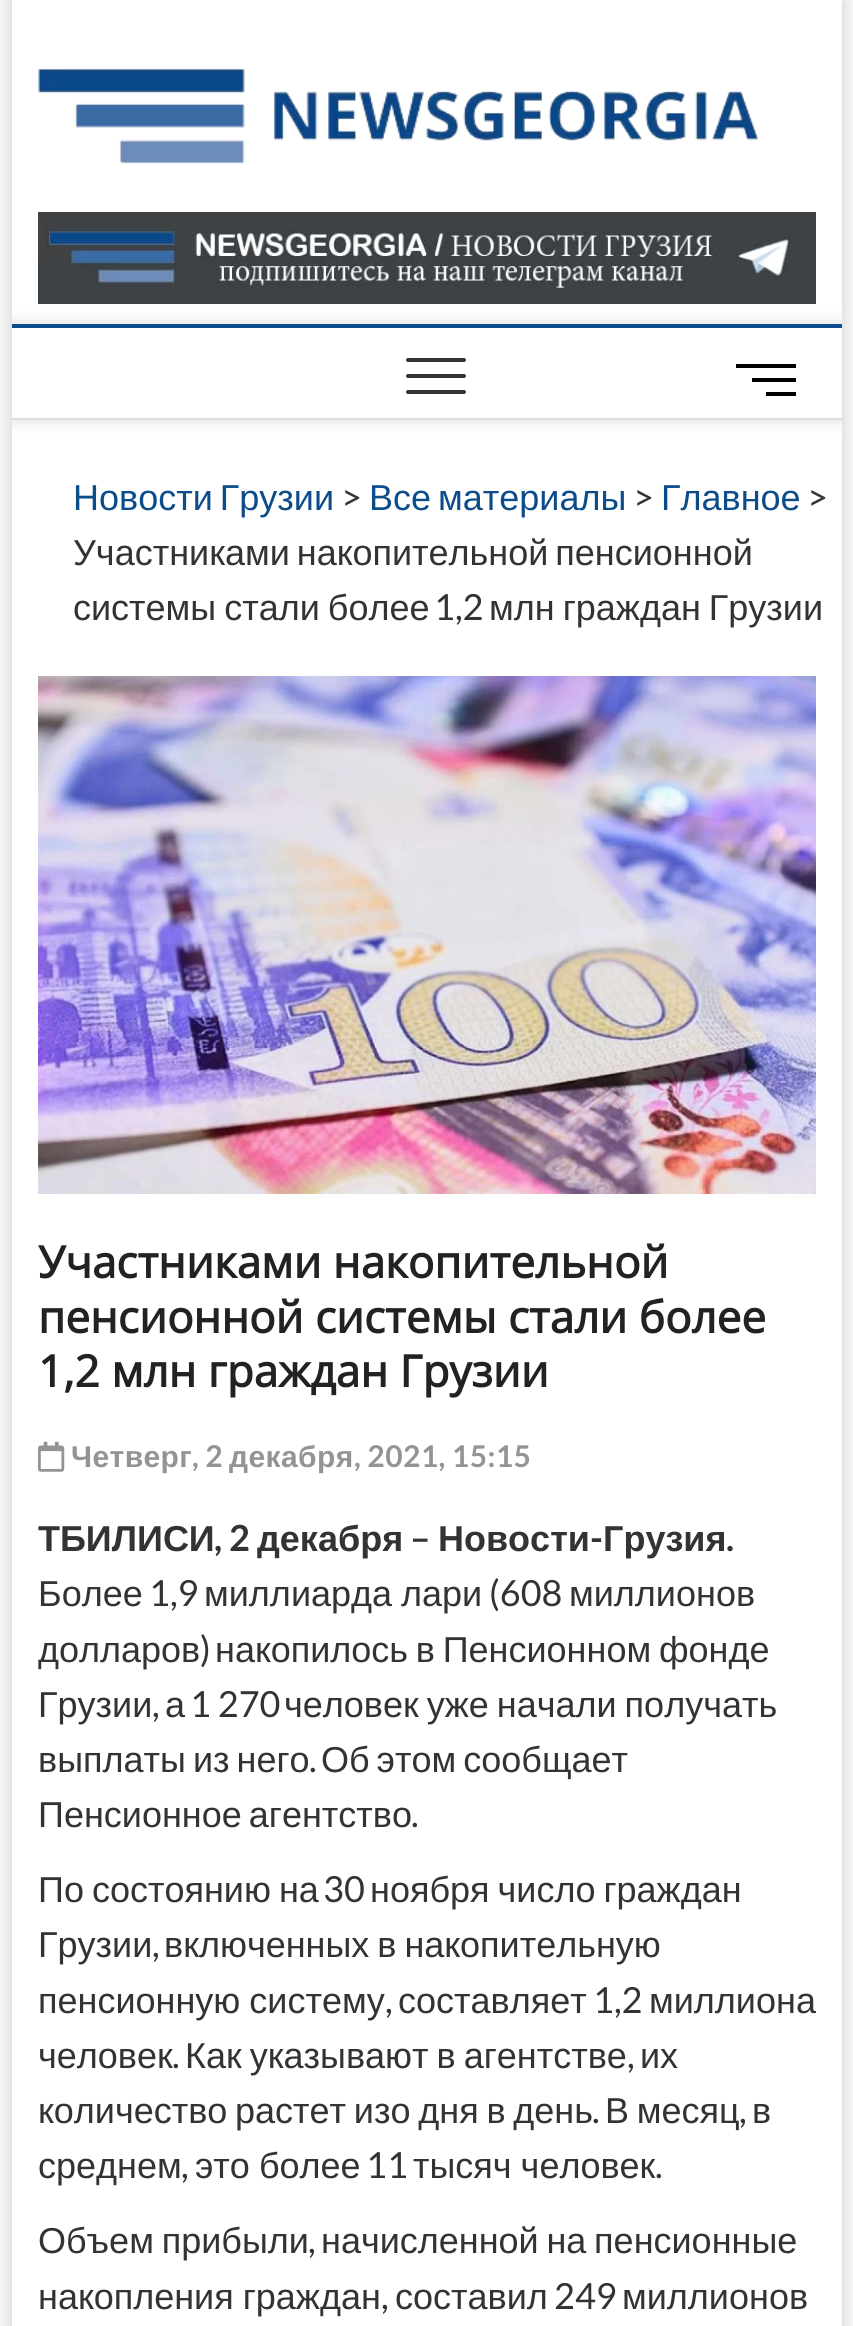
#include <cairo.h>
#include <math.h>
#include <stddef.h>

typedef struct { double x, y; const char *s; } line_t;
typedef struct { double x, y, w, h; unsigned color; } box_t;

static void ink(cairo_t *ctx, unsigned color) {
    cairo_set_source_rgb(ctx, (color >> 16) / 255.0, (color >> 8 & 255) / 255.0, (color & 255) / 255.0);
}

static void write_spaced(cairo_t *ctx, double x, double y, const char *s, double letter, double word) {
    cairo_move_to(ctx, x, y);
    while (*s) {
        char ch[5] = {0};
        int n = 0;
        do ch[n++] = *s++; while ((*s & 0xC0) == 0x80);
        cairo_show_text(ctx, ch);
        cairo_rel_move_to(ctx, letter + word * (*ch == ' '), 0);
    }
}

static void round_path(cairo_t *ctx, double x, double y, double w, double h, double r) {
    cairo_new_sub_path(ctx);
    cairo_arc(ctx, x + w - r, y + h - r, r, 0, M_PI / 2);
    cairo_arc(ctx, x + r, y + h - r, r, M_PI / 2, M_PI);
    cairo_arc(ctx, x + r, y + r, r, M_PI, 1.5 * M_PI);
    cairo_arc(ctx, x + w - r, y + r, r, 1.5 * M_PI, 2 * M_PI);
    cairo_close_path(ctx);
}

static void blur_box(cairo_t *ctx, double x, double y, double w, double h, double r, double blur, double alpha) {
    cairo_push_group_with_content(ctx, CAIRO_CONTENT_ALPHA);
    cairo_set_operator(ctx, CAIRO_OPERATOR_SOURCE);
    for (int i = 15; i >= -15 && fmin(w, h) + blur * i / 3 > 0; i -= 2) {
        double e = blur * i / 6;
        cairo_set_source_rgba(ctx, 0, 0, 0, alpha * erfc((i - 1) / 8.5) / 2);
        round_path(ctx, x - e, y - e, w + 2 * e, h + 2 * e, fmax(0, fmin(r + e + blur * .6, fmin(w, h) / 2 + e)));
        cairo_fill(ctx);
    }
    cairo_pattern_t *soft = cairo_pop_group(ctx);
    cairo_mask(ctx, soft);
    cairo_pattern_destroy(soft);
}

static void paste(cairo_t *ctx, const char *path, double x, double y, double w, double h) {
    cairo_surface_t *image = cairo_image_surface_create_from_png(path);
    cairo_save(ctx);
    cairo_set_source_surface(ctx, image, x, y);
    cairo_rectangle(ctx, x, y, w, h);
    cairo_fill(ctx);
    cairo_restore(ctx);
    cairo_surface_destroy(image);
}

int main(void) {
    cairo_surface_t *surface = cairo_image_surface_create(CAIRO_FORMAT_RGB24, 853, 2326);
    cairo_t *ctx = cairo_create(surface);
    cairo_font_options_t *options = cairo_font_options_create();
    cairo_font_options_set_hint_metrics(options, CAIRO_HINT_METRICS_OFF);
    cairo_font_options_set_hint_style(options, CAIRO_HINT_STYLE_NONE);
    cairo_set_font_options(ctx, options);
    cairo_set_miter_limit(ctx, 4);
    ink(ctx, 0xF4F4F4);
    cairo_paint(ctx);
    ink(ctx, 0x000000);
    blur_box(ctx, 12, 2, 830, 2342, 0, 6, 0.15);
    ink(ctx, 0xFFFFFF);
    cairo_rectangle(ctx, 12, 0, 830, 2326);
    cairo_fill(ctx);
    paste(ctx, "media/1.png", 38, 68, 720, 96);
    paste(ctx, "media/2.png", 38, 212, 778, 92);
    cairo_save(ctx);
    cairo_rectangle(ctx, 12, 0, 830, 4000);
    cairo_clip(ctx);
    cairo_set_fill_rule(ctx, CAIRO_FILL_RULE_EVEN_ODD);
    cairo_new_path(ctx);
    cairo_move_to(ctx, 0, 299);
    cairo_line_to(ctx, 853, 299);
    cairo_line_to(ctx, 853, 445);
    cairo_line_to(ctx, 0, 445);
    cairo_close_path(ctx);
    cairo_move_to(ctx, 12, 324);
    cairo_line_to(ctx, 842, 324);
    cairo_line_to(ctx, 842, 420);
    cairo_line_to(ctx, 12, 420);
    cairo_close_path(ctx);
    cairo_clip(ctx);
    ink(ctx, 0x000000);
    blur_box(ctx, 12, 324, 830, 96, 0, 8, 0.15);
    cairo_restore(ctx);
    ink(ctx, 0x0C4C8A);
    cairo_rectangle(ctx, 12, 324, 830, 4);
    cairo_fill(ctx);
    ink(ctx, 0xDDDDDD);
    cairo_rectangle(ctx, 12, 418, 830, 2);
    cairo_fill(ctx);
    ink(ctx, 0x333333);
    round_path(ctx, 406, 374, 60, 4, 2);
    cairo_fill(ctx);
    round_path(ctx, 406, 358, 60, 4, 2);
    cairo_fill(ctx);
    round_path(ctx, 406, 390, 60, 4, 2);
    cairo_fill(ctx);
    {
        static const box_t items[] = {
            {752, 378, 44, 4, 0x000000},
            {736, 364, 60, 4, 0x000000},
            {766, 392, 30, 4, 0x000000},
        };
        for (size_t i = 0; i < sizeof items / sizeof *items; i++) {
            ink(ctx, items[i].color);
            cairo_rectangle(ctx, items[i].x, items[i].y, items[i].w, items[i].h);
            cairo_fill(ctx);
        }
    }
    cairo_select_font_face(ctx, "Liberation Sans", CAIRO_FONT_SLANT_NORMAL, CAIRO_FONT_WEIGHT_NORMAL);
    cairo_set_font_size(ctx, 36);
    ink(ctx, 0x0C4C8A);
    write_spaced(ctx, 73, 510, "Новости Грузии", 0, -3);
    cairo_select_font_face(ctx, "Lato", CAIRO_FONT_SLANT_NORMAL, CAIRO_FONT_WEIGHT_NORMAL);
    ink(ctx, 0x333333);
    cairo_move_to(ctx, 341, 510);
    cairo_show_text(ctx, ">");
    cairo_select_font_face(ctx, "Liberation Sans", CAIRO_FONT_SLANT_NORMAL, CAIRO_FONT_WEIGHT_NORMAL);
    ink(ctx, 0x0C4C8A);
    write_spaced(ctx, 369, 510, "Все материалы", 0, -3);
    cairo_select_font_face(ctx, "Lato", CAIRO_FONT_SLANT_NORMAL, CAIRO_FONT_WEIGHT_NORMAL);
    ink(ctx, 0x333333);
    cairo_move_to(ctx, 633, 510);
    cairo_show_text(ctx, ">");
    cairo_select_font_face(ctx, "Liberation Sans", CAIRO_FONT_SLANT_NORMAL, CAIRO_FONT_WEIGHT_NORMAL);
    ink(ctx, 0x0C4C8A);
    cairo_move_to(ctx, 661, 510);
    cairo_show_text(ctx, "Главное");
    cairo_select_font_face(ctx, "Lato", CAIRO_FONT_SLANT_NORMAL, CAIRO_FONT_WEIGHT_NORMAL);
    ink(ctx, 0x333333);
    cairo_move_to(ctx, 807, 510);
    cairo_show_text(ctx, ">");
    cairo_select_font_face(ctx, "Liberation Sans", CAIRO_FONT_SLANT_NORMAL, CAIRO_FONT_WEIGHT_NORMAL);
    write_spaced(ctx, 73, 565, "Участниками накопительной пенсионной", 0, -3);
    write_spaced(ctx, 73, 620, "системы стали более", 0, -2);
    cairo_select_font_face(ctx, "Lato", CAIRO_FONT_SLANT_NORMAL, CAIRO_FONT_WEIGHT_NORMAL);
    cairo_move_to(ctx, 434, 620);
    cairo_show_text(ctx, "1,2");
    cairo_select_font_face(ctx, "Liberation Sans", CAIRO_FONT_SLANT_NORMAL, CAIRO_FONT_WEIGHT_NORMAL);
    write_spaced(ctx, 489, 620, "млн граждан Грузии", 0, -2);
    paste(ctx, "media/3.png", 38, 676, 778, 518);
    cairo_select_font_face(ctx, "Open Sans", CAIRO_FONT_SLANT_NORMAL, CAIRO_FONT_WEIGHT_BOLD);
    cairo_set_font_size(ctx, 44);
    ink(ctx, 0x222222);
    {
        static const line_t items[] = {
            {38, 1278, "Участниками накопительной"},
            {38, 1333, "пенсионной системы стали более"},
            {38, 1387, "1,2 млн граждан Грузии"},
        };
        for (size_t i = 0; i < sizeof items / sizeof *items; i++) {
            cairo_move_to(ctx, items[i].x, items[i].y);
            cairo_show_text(ctx, items[i].s);
        }
    }
    paste(ctx, "media/4.png", 38, 1441, 27, 31);
    cairo_select_font_face(ctx, "Liberation Sans", CAIRO_FONT_SLANT_NORMAL, CAIRO_FONT_WEIGHT_BOLD);
    cairo_set_font_size(ctx, 30);
    ink(ctx, 0x949494);
    write_spaced(ctx, 71, 1467, "Четверг", 0.4, 0);
    cairo_select_font_face(ctx, "Lato", CAIRO_FONT_SLANT_NORMAL, CAIRO_FONT_WEIGHT_BOLD);
    write_spaced(ctx, 192, 1467, ", 2", 0.4, 0);
    cairo_select_font_face(ctx, "Liberation Sans", CAIRO_FONT_SLANT_NORMAL, CAIRO_FONT_WEIGHT_BOLD);
    write_spaced(ctx, 229, 1467, "декабря", 0.4, 0);
    cairo_select_font_face(ctx, "Lato", CAIRO_FONT_SLANT_NORMAL, CAIRO_FONT_WEIGHT_BOLD);
    write_spaced(ctx, 354, 1467, ", 2021, 15:15", 0.4, 0);
    cairo_select_font_face(ctx, "Liberation Sans", CAIRO_FONT_SLANT_NORMAL, CAIRO_FONT_WEIGHT_BOLD);
    cairo_set_font_size(ctx, 36);
    ink(ctx, 0x333333);
    cairo_move_to(ctx, 38, 1551);
    cairo_show_text(ctx, "ТБИЛИСИ");
    cairo_select_font_face(ctx, "Lato", CAIRO_FONT_SLANT_NORMAL, CAIRO_FONT_WEIGHT_BOLD);
    cairo_move_to(ctx, 214, 1551);
    cairo_show_text(ctx, ", 2");
    cairo_select_font_face(ctx, "Liberation Sans", CAIRO_FONT_SLANT_NORMAL, CAIRO_FONT_WEIGHT_BOLD);
    cairo_move_to(ctx, 257, 1551);
    cairo_show_text(ctx, "декабря");
    cairo_select_font_face(ctx, "Lato", CAIRO_FONT_SLANT_NORMAL, CAIRO_FONT_WEIGHT_BOLD);
    cairo_move_to(ctx, 410, 1551);
    cairo_show_text(ctx, "–");
    cairo_select_font_face(ctx, "Liberation Sans", CAIRO_FONT_SLANT_NORMAL, CAIRO_FONT_WEIGHT_BOLD);
    cairo_move_to(ctx, 438, 1551);
    cairo_show_text(ctx, "Новости");
    cairo_select_font_face(ctx, "Lato", CAIRO_FONT_SLANT_NORMAL, CAIRO_FONT_WEIGHT_BOLD);
    cairo_move_to(ctx, 590, 1551);
    cairo_show_text(ctx, "-");
    cairo_select_font_face(ctx, "Liberation Sans", CAIRO_FONT_SLANT_NORMAL, CAIRO_FONT_WEIGHT_BOLD);
    cairo_move_to(ctx, 603, 1551);
    cairo_show_text(ctx, "Грузия");
    cairo_select_font_face(ctx, "Lato", CAIRO_FONT_SLANT_NORMAL, CAIRO_FONT_WEIGHT_BOLD);
    cairo_move_to(ctx, 726, 1551);
    cairo_show_text(ctx, ".");
    cairo_select_font_face(ctx, "Liberation Sans", CAIRO_FONT_SLANT_NORMAL, CAIRO_FONT_WEIGHT_NORMAL);
    cairo_move_to(ctx, 38, 1606);
    cairo_show_text(ctx, "Более");
    cairo_select_font_face(ctx, "Lato", CAIRO_FONT_SLANT_NORMAL, CAIRO_FONT_WEIGHT_NORMAL);
    cairo_move_to(ctx, 149, 1606);
    cairo_show_text(ctx, "1,9");
    cairo_select_font_face(ctx, "Liberation Sans", CAIRO_FONT_SLANT_NORMAL, CAIRO_FONT_WEIGHT_NORMAL);
    write_spaced(ctx, 204, 1606, "миллиарда лари", 0, -1);
    cairo_select_font_face(ctx, "Lato", CAIRO_FONT_SLANT_NORMAL, CAIRO_FONT_WEIGHT_NORMAL);
    cairo_move_to(ctx, 489, 1606);
    cairo_show_text(ctx, "(608");
    cairo_select_font_face(ctx, "Liberation Sans", CAIRO_FONT_SLANT_NORMAL, CAIRO_FONT_WEIGHT_NORMAL);
    cairo_move_to(ctx, 569, 1606);
    cairo_show_text(ctx, "миллионов");
    cairo_move_to(ctx, 38, 1662);
    cairo_show_text(ctx, "долларов");
    cairo_select_font_face(ctx, "Lato", CAIRO_FONT_SLANT_NORMAL, CAIRO_FONT_WEIGHT_NORMAL);
    cairo_move_to(ctx, 200, 1662);
    cairo_show_text(ctx, ")");
    cairo_select_font_face(ctx, "Liberation Sans", CAIRO_FONT_SLANT_NORMAL, CAIRO_FONT_WEIGHT_NORMAL);
    write_spaced(ctx, 215, 1662, "накопилось в Пенсионном фонде", 0, -2.25);
    cairo_move_to(ctx, 38, 1717);
    cairo_show_text(ctx, "Грузии");
    cairo_select_font_face(ctx, "Lato", CAIRO_FONT_SLANT_NORMAL, CAIRO_FONT_WEIGHT_NORMAL);
    cairo_move_to(ctx, 152, 1717);
    cairo_show_text(ctx, ",");
    cairo_select_font_face(ctx, "Liberation Sans", CAIRO_FONT_SLANT_NORMAL, CAIRO_FONT_WEIGHT_NORMAL);
    cairo_move_to(ctx, 165, 1717);
    cairo_show_text(ctx, "а");
    cairo_select_font_face(ctx, "Lato", CAIRO_FONT_SLANT_NORMAL, CAIRO_FONT_WEIGHT_NORMAL);
    cairo_move_to(ctx, 190, 1717);
    cairo_show_text(ctx, "1 270");
    cairo_select_font_face(ctx, "Liberation Sans", CAIRO_FONT_SLANT_NORMAL, CAIRO_FONT_WEIGHT_NORMAL);
    write_spaced(ctx, 284, 1717, "человек уже начали получать", 0, -2);
    write_spaced(ctx, 38, 1772, "выплаты из него", 0, -3);
    cairo_select_font_face(ctx, "Lato", CAIRO_FONT_SLANT_NORMAL, CAIRO_FONT_WEIGHT_NORMAL);
    cairo_move_to(ctx, 309, 1772);
    cairo_show_text(ctx, ".");
    cairo_select_font_face(ctx, "Liberation Sans", CAIRO_FONT_SLANT_NORMAL, CAIRO_FONT_WEIGHT_NORMAL);
    write_spaced(ctx, 321, 1772, "Об этом сообщает", 0, -3);
    write_spaced(ctx, 38, 1827, "Пенсионное агентство", 0, -3);
    cairo_select_font_face(ctx, "Lato", CAIRO_FONT_SLANT_NORMAL, CAIRO_FONT_WEIGHT_NORMAL);
    cairo_move_to(ctx, 411, 1827);
    cairo_show_text(ctx, ".");
    cairo_select_font_face(ctx, "Liberation Sans", CAIRO_FONT_SLANT_NORMAL, CAIRO_FONT_WEIGHT_NORMAL);
    write_spaced(ctx, 38, 1902, "По состоянию на", 0, -2);
    cairo_select_font_face(ctx, "Lato", CAIRO_FONT_SLANT_NORMAL, CAIRO_FONT_WEIGHT_NORMAL);
    cairo_move_to(ctx, 323, 1902);
    cairo_show_text(ctx, "30");
    cairo_select_font_face(ctx, "Liberation Sans", CAIRO_FONT_SLANT_NORMAL, CAIRO_FONT_WEIGHT_NORMAL);
    write_spaced(ctx, 370, 1902, "ноября число граждан", 0, -2);
    cairo_move_to(ctx, 38, 1957);
    cairo_show_text(ctx, "Грузии");
    cairo_select_font_face(ctx, "Lato", CAIRO_FONT_SLANT_NORMAL, CAIRO_FONT_WEIGHT_NORMAL);
    cairo_move_to(ctx, 152, 1957);
    cairo_show_text(ctx, ",");
    cairo_select_font_face(ctx, "Liberation Sans", CAIRO_FONT_SLANT_NORMAL, CAIRO_FONT_WEIGHT_NORMAL);
    write_spaced(ctx, 164, 1957, "включенных в накопительную", 0, -2);
    write_spaced(ctx, 38, 2013, "пенсионную систему", 0, -1);
    cairo_select_font_face(ctx, "Lato", CAIRO_FONT_SLANT_NORMAL, CAIRO_FONT_WEIGHT_NORMAL);
    cairo_move_to(ctx, 385, 2013);
    cairo_show_text(ctx, ",");
    cairo_select_font_face(ctx, "Liberation Sans", CAIRO_FONT_SLANT_NORMAL, CAIRO_FONT_WEIGHT_NORMAL);
    cairo_move_to(ctx, 398, 2013);
    cairo_show_text(ctx, "составляет");
    cairo_select_font_face(ctx, "Lato", CAIRO_FONT_SLANT_NORMAL, CAIRO_FONT_WEIGHT_NORMAL);
    cairo_move_to(ctx, 593, 2013);
    cairo_show_text(ctx, "1,2");
    cairo_select_font_face(ctx, "Liberation Sans", CAIRO_FONT_SLANT_NORMAL, CAIRO_FONT_WEIGHT_NORMAL);
    cairo_move_to(ctx, 649, 2013);
    cairo_show_text(ctx, "миллиона");
    cairo_move_to(ctx, 38, 2068);
    cairo_show_text(ctx, "человек");
    cairo_select_font_face(ctx, "Lato", CAIRO_FONT_SLANT_NORMAL, CAIRO_FONT_WEIGHT_NORMAL);
    cairo_move_to(ctx, 172, 2068);
    cairo_show_text(ctx, ".");
    cairo_select_font_face(ctx, "Liberation Sans", CAIRO_FONT_SLANT_NORMAL, CAIRO_FONT_WEIGHT_NORMAL);
    write_spaced(ctx, 185, 2068, "Как указывают в агентстве", 0, -2);
    cairo_select_font_face(ctx, "Lato", CAIRO_FONT_SLANT_NORMAL, CAIRO_FONT_WEIGHT_NORMAL);
    cairo_move_to(ctx, 627, 2068);
    cairo_show_text(ctx, ",");
    cairo_select_font_face(ctx, "Liberation Sans", CAIRO_FONT_SLANT_NORMAL, CAIRO_FONT_WEIGHT_NORMAL);
    cairo_move_to(ctx, 640, 2068);
    cairo_show_text(ctx, "их");
    write_spaced(ctx, 38, 2123, "количество растет изо дня в день", 0, -2.25);
    cairo_select_font_face(ctx, "Lato", CAIRO_FONT_SLANT_NORMAL, CAIRO_FONT_WEIGHT_NORMAL);
    cairo_move_to(ctx, 592, 2123);
    cairo_show_text(ctx, ".");
    cairo_select_font_face(ctx, "Liberation Sans", CAIRO_FONT_SLANT_NORMAL, CAIRO_FONT_WEIGHT_NORMAL);
    write_spaced(ctx, 605, 2123, "В месяц", 0, -2.25);
    cairo_select_font_face(ctx, "Lato", CAIRO_FONT_SLANT_NORMAL, CAIRO_FONT_WEIGHT_NORMAL);
    cairo_move_to(ctx, 739, 2123);
    cairo_show_text(ctx, ",");
    cairo_select_font_face(ctx, "Liberation Sans", CAIRO_FONT_SLANT_NORMAL, CAIRO_FONT_WEIGHT_NORMAL);
    cairo_move_to(ctx, 752, 2123);
    cairo_show_text(ctx, "в");
    cairo_move_to(ctx, 38, 2178);
    cairo_show_text(ctx, "среднем");
    cairo_select_font_face(ctx, "Lato", CAIRO_FONT_SLANT_NORMAL, CAIRO_FONT_WEIGHT_NORMAL);
    cairo_move_to(ctx, 181, 2178);
    cairo_show_text(ctx, ",");
    cairo_select_font_face(ctx, "Liberation Sans", CAIRO_FONT_SLANT_NORMAL, CAIRO_FONT_WEIGHT_NORMAL);
    write_spaced(ctx, 195, 2178, "это более", 0, -1);
    cairo_select_font_face(ctx, "Lato", CAIRO_FONT_SLANT_NORMAL, CAIRO_FONT_WEIGHT_NORMAL);
    cairo_move_to(ctx, 366, 2178);
    cairo_show_text(ctx, "11");
    cairo_select_font_face(ctx, "Liberation Sans", CAIRO_FONT_SLANT_NORMAL, CAIRO_FONT_WEIGHT_NORMAL);
    write_spaced(ctx, 413, 2178, "тысяч человек", 0, -1);
    cairo_select_font_face(ctx, "Lato", CAIRO_FONT_SLANT_NORMAL, CAIRO_FONT_WEIGHT_NORMAL);
    cairo_move_to(ctx, 655, 2178);
    cairo_show_text(ctx, ".");
    cairo_select_font_face(ctx, "Liberation Sans", CAIRO_FONT_SLANT_NORMAL, CAIRO_FONT_WEIGHT_NORMAL);
    write_spaced(ctx, 38, 2253, "Объем прибыли", 0, -2.25);
    cairo_select_font_face(ctx, "Lato", CAIRO_FONT_SLANT_NORMAL, CAIRO_FONT_WEIGHT_NORMAL);
    cairo_move_to(ctx, 308, 2253);
    cairo_show_text(ctx, ",");
    cairo_select_font_face(ctx, "Liberation Sans", CAIRO_FONT_SLANT_NORMAL, CAIRO_FONT_WEIGHT_NORMAL);
    write_spaced(ctx, 321, 2253, "начисленной на пенсионные", 0, -2.25);
    write_spaced(ctx, 38, 2309, "накопления граждан", 0, -1);
    cairo_select_font_face(ctx, "Lato", CAIRO_FONT_SLANT_NORMAL, CAIRO_FONT_WEIGHT_NORMAL);
    cairo_move_to(ctx, 381, 2309);
    cairo_show_text(ctx, ",");
    cairo_select_font_face(ctx, "Liberation Sans", CAIRO_FONT_SLANT_NORMAL, CAIRO_FONT_WEIGHT_NORMAL);
    cairo_move_to(ctx, 395, 2309);
    cairo_show_text(ctx, "составил");
    cairo_select_font_face(ctx, "Lato", CAIRO_FONT_SLANT_NORMAL, CAIRO_FONT_WEIGHT_NORMAL);
    cairo_move_to(ctx, 554, 2309);
    cairo_show_text(ctx, "249");
    cairo_select_font_face(ctx, "Liberation Sans", CAIRO_FONT_SLANT_NORMAL, CAIRO_FONT_WEIGHT_NORMAL);
    cairo_move_to(ctx, 622, 2309);
    cairo_show_text(ctx, "миллионов");
    cairo_surface_write_to_png(surface, "image.png");
    cairo_font_options_destroy(options);
    cairo_destroy(ctx);
    cairo_surface_destroy(surface);
    return 0;
}
